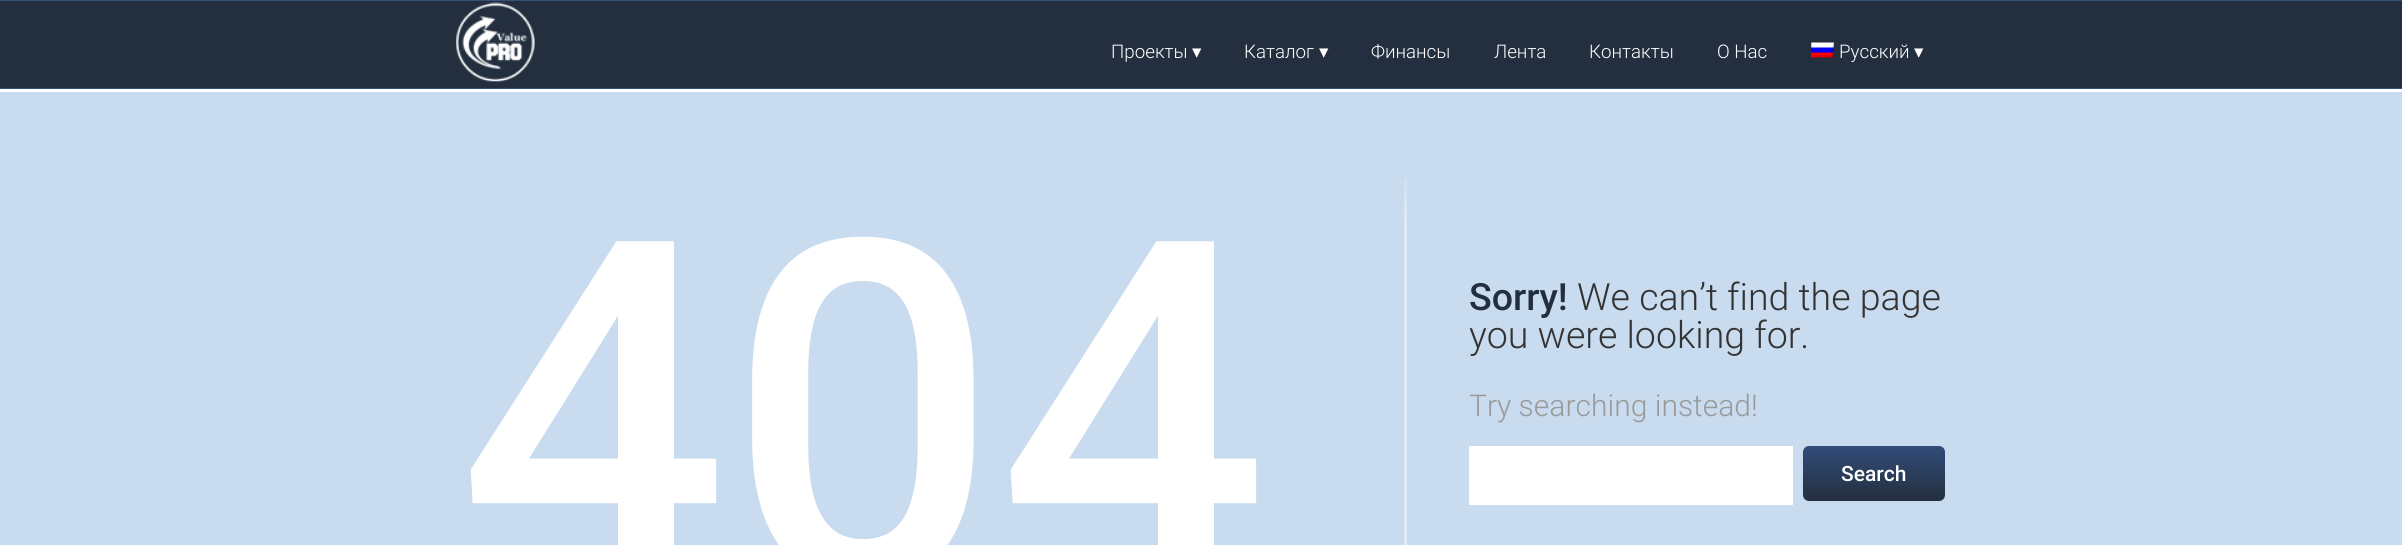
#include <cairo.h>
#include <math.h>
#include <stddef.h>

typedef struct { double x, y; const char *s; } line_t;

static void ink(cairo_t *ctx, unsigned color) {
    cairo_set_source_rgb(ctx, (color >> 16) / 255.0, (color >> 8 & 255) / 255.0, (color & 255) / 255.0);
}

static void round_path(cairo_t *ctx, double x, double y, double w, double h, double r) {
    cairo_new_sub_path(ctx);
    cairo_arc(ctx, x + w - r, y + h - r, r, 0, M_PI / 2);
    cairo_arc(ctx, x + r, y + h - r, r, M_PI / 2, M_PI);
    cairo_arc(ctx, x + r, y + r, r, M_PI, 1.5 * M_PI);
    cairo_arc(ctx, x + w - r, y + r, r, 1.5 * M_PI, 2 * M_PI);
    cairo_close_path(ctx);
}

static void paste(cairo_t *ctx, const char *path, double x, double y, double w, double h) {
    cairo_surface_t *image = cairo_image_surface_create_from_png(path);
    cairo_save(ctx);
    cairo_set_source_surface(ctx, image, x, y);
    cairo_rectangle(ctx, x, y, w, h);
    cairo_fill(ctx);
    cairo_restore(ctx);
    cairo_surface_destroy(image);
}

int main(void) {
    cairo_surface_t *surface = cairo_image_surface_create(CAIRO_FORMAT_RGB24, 2402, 545);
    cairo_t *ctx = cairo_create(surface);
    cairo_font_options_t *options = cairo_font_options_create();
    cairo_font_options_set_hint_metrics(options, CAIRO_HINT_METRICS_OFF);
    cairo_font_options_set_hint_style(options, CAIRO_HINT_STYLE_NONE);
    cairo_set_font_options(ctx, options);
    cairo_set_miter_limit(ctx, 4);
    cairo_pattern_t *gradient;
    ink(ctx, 0x232F3E);
    cairo_paint(ctx);
    ink(ctx, 0x35517A);
    cairo_rectangle(ctx, 0, 0, 2402, 1);
    cairo_fill(ctx);
    cairo_rectangle(ctx, 0, 88, 2402, 1);
    cairo_fill(ctx);
    paste(ctx, "media/1.png", 456, 2, 79, 80);
    cairo_select_font_face(ctx, "Roboto Light", CAIRO_FONT_SLANT_NORMAL, CAIRO_FONT_WEIGHT_NORMAL);
    cairo_set_font_size(ctx, 18.75);
    ink(ctx, 0xFFFFFF);
    cairo_move_to(ctx, 1111, 58);
    cairo_show_text(ctx, "Проекты");
    cairo_select_font_face(ctx, "DejaVu Sans", CAIRO_FONT_SLANT_NORMAL, CAIRO_FONT_WEIGHT_NORMAL);
    cairo_move_to(ctx, 1192, 58);
    cairo_show_text(ctx, "▾");
    cairo_select_font_face(ctx, "Roboto Light", CAIRO_FONT_SLANT_NORMAL, CAIRO_FONT_WEIGHT_NORMAL);
    cairo_move_to(ctx, 1244, 58);
    cairo_show_text(ctx, "Каталог");
    cairo_select_font_face(ctx, "DejaVu Sans", CAIRO_FONT_SLANT_NORMAL, CAIRO_FONT_WEIGHT_NORMAL);
    cairo_move_to(ctx, 1319, 58);
    cairo_show_text(ctx, "▾");
    cairo_select_font_face(ctx, "Roboto Light", CAIRO_FONT_SLANT_NORMAL, CAIRO_FONT_WEIGHT_NORMAL);
    {
        static const line_t items[] = {
            {1371, 58, "Финансы"},
            {1494, 58, "Лента"},
            {1589, 58, "Контакты"},
            {1717, 58, "О Нас"},
        };
        for (size_t i = 0; i < sizeof items / sizeof *items; i++) {
            cairo_move_to(ctx, items[i].x, items[i].y);
            cairo_show_text(ctx, items[i].s);
        }
    }
    paste(ctx, "media/2.png", 1811, 42, 23, 16);
    cairo_move_to(ctx, 1839, 58);
    cairo_show_text(ctx, "Русский");
    cairo_select_font_face(ctx, "DejaVu Sans", CAIRO_FONT_SLANT_NORMAL, CAIRO_FONT_WEIGHT_NORMAL);
    cairo_move_to(ctx, 1914, 58);
    cairo_show_text(ctx, "▾");
    ink(ctx, 0xC9DBEF);
    cairo_rectangle(ctx, 0, 92, 2402, 453);
    cairo_fill(ctx);
    ink(ctx, 0xFFFFFF);
    cairo_rectangle(ctx, 0, 89, 2402, 3);
    cairo_fill(ctx);
    cairo_select_font_face(ctx, "Roboto Medium", CAIRO_FONT_SLANT_NORMAL, CAIRO_FONT_WEIGHT_NORMAL);
    cairo_set_font_size(ctx, 475);
    cairo_move_to(ctx, 458, 579);
    cairo_show_text(ctx, "404");
    gradient = cairo_pattern_create_linear(1405, 179, 1405, 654);
    cairo_pattern_add_color_stop_rgba(gradient, 0, 0.816, 0.878, 0.945, 1);
    cairo_pattern_add_color_stop_rgba(gradient, 0.1, 0.882, 0.922, 0.965, 1);
    cairo_pattern_add_color_stop_rgba(gradient, 0.9, 0.882, 0.922, 0.965, 1);
    cairo_pattern_add_color_stop_rgba(gradient, 1, 0.816, 0.878, 0.945, 1);
    cairo_set_source(ctx, gradient);
    cairo_pattern_destroy(gradient);
    cairo_rectangle(ctx, 1404, 179, 3, 366);
    cairo_fill(ctx);
    cairo_set_font_size(ctx, 37.5);
    ink(ctx, 0x232F3E);
    cairo_move_to(ctx, 1469, 310);
    cairo_show_text(ctx, "Sorry!");
    cairo_select_font_face(ctx, "Roboto Light", CAIRO_FONT_SLANT_NORMAL, CAIRO_FONT_WEIGHT_NORMAL);
    ink(ctx, 0x333333);
    cairo_move_to(ctx, 1577, 310);
    cairo_show_text(ctx, "We can’t find the page");
    cairo_move_to(ctx, 1469, 348);
    cairo_show_text(ctx, "you were looking for.");
    cairo_set_font_size(ctx, 30);
    ink(ctx, 0x999999);
    cairo_move_to(ctx, 1469, 416);
    cairo_show_text(ctx, "Try searching instead!");
    ink(ctx, 0xFFFFFF);
    cairo_rectangle(ctx, 1469, 446, 324, 59);
    cairo_fill(ctx);
    gradient = cairo_pattern_create_linear(1874, 446, 1874, 501);
    cairo_pattern_add_color_stop_rgba(gradient, 0, 0.196, 0.298, 0.475, 1);
    cairo_pattern_add_color_stop_rgba(gradient, 1, 0.137, 0.184, 0.243, 1);
    cairo_set_source(ctx, gradient);
    cairo_pattern_destroy(gradient);
    round_path(ctx, 1803, 446, 142, 55, 6);
    cairo_fill(ctx);
    cairo_select_font_face(ctx, "Roboto Medium", CAIRO_FONT_SLANT_NORMAL, CAIRO_FONT_WEIGHT_NORMAL);
    cairo_set_font_size(ctx, 21);
    ink(ctx, 0xFFFFFF);
    cairo_move_to(ctx, 1841, 481);
    cairo_show_text(ctx, "Search");
    cairo_surface_write_to_png(surface, "image.png");
    cairo_font_options_destroy(options);
    cairo_destroy(ctx);
    cairo_surface_destroy(surface);
    return 0;
}
